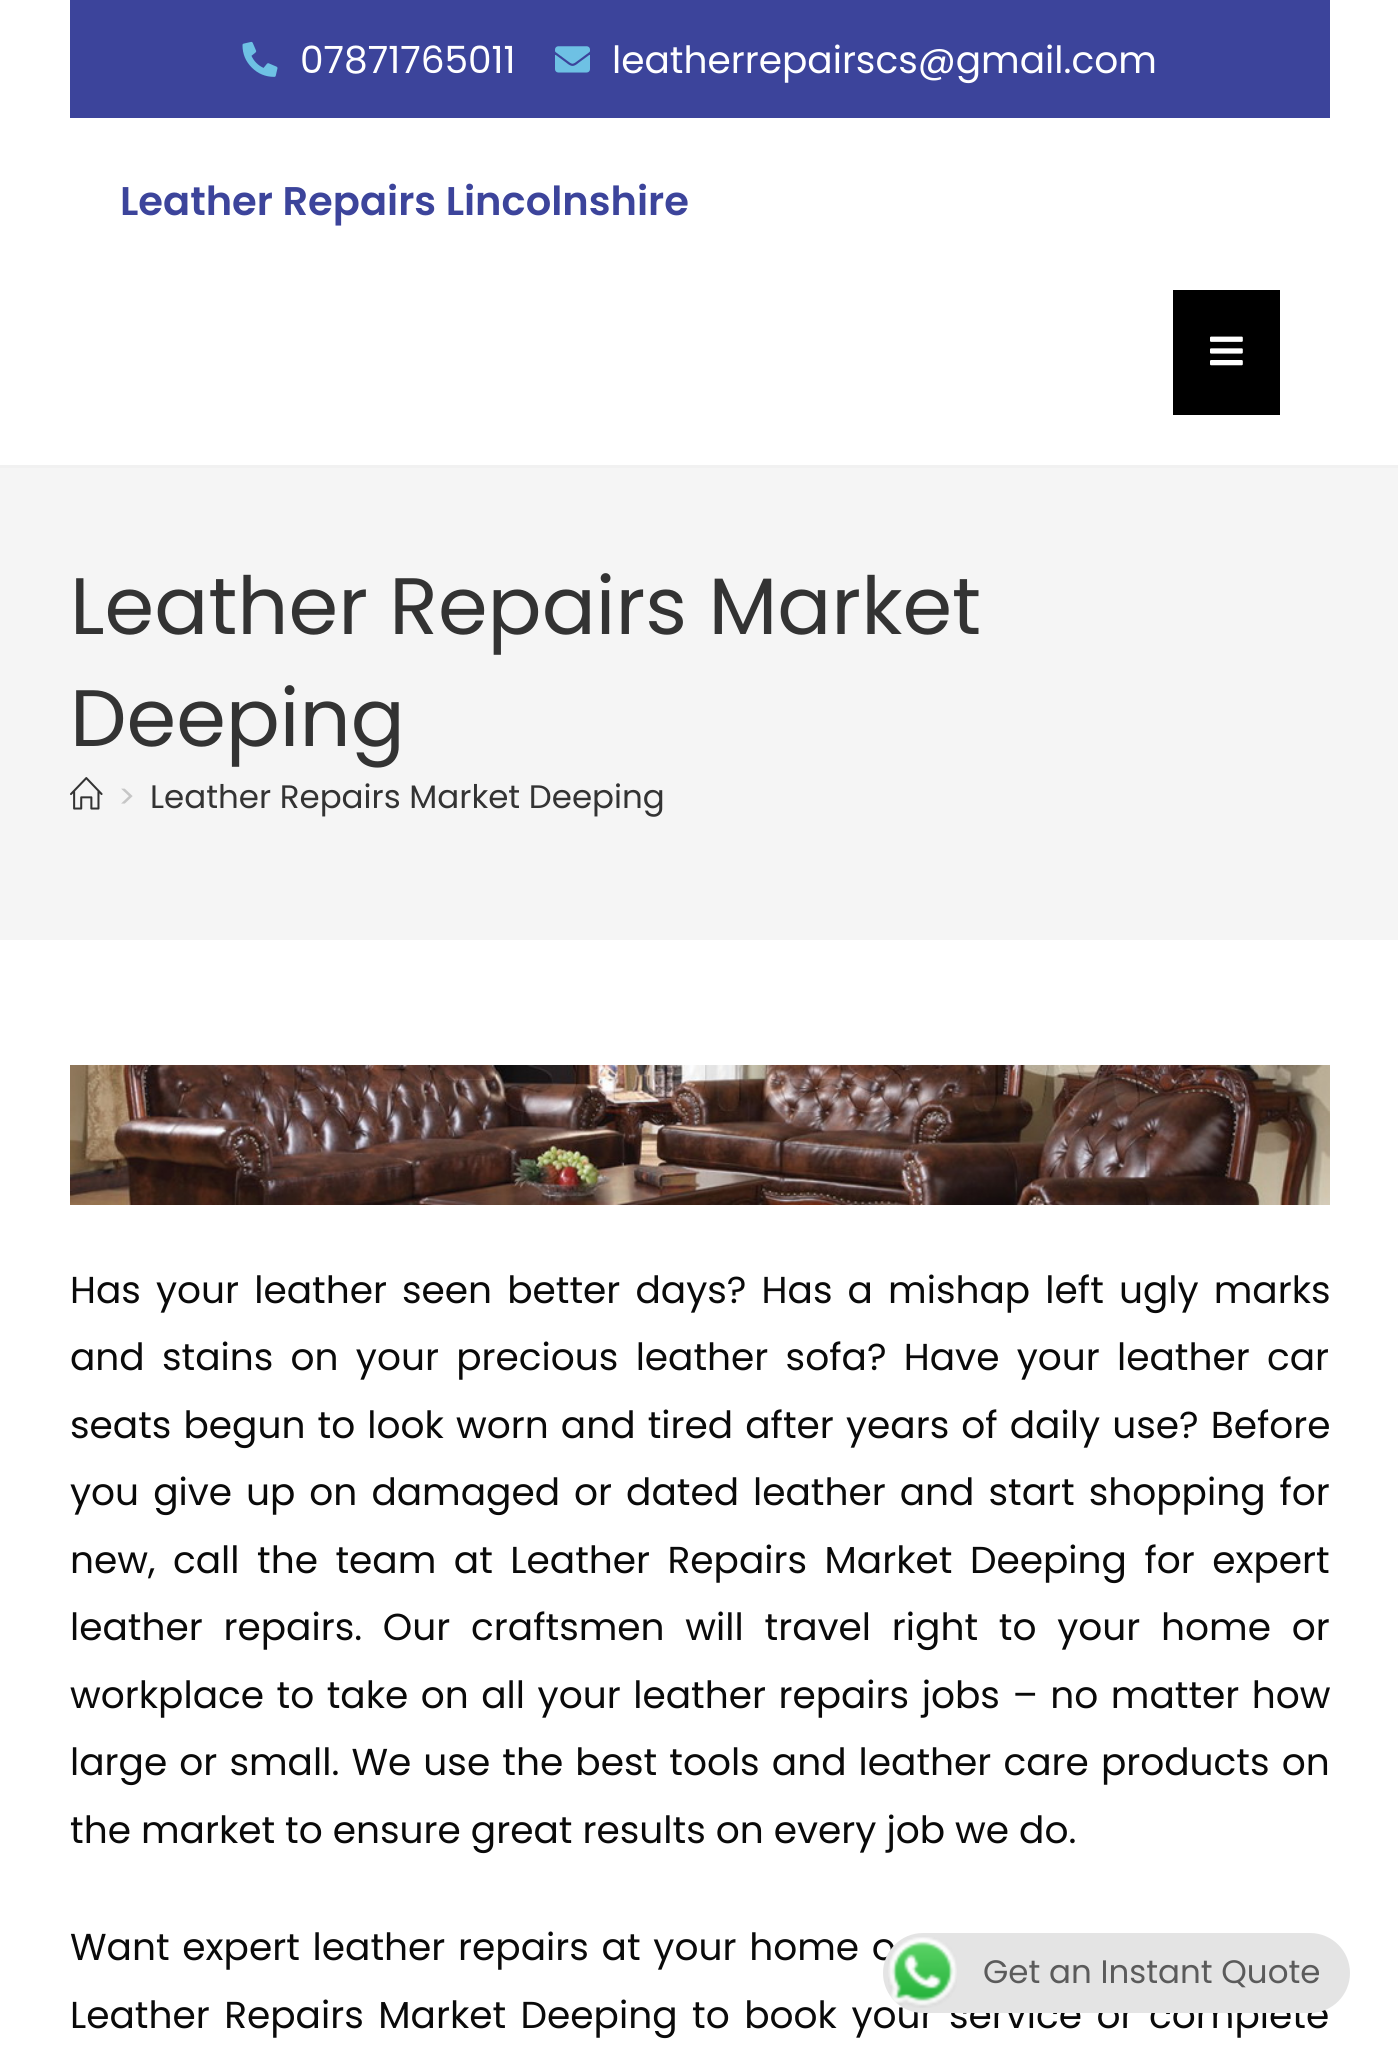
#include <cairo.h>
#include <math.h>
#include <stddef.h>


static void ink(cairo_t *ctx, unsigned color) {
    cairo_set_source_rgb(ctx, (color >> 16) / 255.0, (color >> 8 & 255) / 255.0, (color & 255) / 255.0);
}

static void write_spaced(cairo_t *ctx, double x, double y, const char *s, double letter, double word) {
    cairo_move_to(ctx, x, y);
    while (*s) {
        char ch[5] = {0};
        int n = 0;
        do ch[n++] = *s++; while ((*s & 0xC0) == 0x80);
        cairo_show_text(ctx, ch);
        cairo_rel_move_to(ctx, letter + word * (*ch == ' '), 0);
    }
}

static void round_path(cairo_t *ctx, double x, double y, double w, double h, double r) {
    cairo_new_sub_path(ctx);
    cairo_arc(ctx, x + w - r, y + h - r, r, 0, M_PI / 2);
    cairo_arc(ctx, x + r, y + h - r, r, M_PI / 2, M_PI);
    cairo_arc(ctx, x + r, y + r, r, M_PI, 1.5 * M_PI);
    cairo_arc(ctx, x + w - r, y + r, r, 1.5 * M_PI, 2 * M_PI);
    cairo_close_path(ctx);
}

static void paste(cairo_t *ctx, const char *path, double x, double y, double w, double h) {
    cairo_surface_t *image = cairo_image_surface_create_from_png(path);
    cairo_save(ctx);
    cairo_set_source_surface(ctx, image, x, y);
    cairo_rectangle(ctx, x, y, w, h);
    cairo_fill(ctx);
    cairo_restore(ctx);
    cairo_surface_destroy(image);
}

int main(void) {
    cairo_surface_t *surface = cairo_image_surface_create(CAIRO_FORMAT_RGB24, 1398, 2062);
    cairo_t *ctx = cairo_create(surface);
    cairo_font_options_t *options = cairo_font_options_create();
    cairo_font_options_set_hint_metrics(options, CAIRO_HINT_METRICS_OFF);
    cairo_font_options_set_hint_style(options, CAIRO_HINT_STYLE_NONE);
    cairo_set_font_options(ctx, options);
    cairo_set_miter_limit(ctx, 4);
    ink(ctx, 0xFFFFFF);
    cairo_paint(ctx);
    ink(ctx, 0xF1F1F1);
    cairo_rectangle(ctx, 0, 465, 1398, 3);
    cairo_fill(ctx);
    ink(ctx, 0x3C449B);
    cairo_rectangle(ctx, 70, 0, 1260, 118);
    cairo_fill(ctx);
    paste(ctx, "media/1.png", 242, 41, 36, 36);
    cairo_select_font_face(ctx, "Poppins", CAIRO_FONT_SLANT_NORMAL, CAIRO_FONT_WEIGHT_NORMAL);
    cairo_set_font_size(ctx, 37.5);
    ink(ctx, 0xFFFFFF);
    cairo_move_to(ctx, 300, 73);
    cairo_show_text(ctx, "07871765011");
    paste(ctx, "media/2.png", 555, 46, 35, 27);
    cairo_move_to(ctx, 612, 73);
    cairo_show_text(ctx, "leatherrepairscs@gmail.com");
    cairo_select_font_face(ctx, "Poppins SemiBold", CAIRO_FONT_SLANT_NORMAL, CAIRO_FONT_WEIGHT_NORMAL);
    cairo_set_font_size(ctx, 40);
    ink(ctx, 0x3C449B);
    cairo_move_to(ctx, 120, 215);
    cairo_show_text(ctx, "Leather Repairs Lincolnshire");
    ink(ctx, 0x000000);
    cairo_rectangle(ctx, 1173, 290, 107, 125);
    cairo_fill(ctx);
    paste(ctx, "media/3.png", 1210, 336, 33, 30);
    ink(ctx, 0xF5F5F5);
    cairo_rectangle(ctx, 0, 468, 1398, 472);
    cairo_fill(ctx);
    cairo_select_font_face(ctx, "Poppins", CAIRO_FONT_SLANT_NORMAL, CAIRO_FONT_WEIGHT_NORMAL);
    cairo_set_font_size(ctx, 80);
    ink(ctx, 0x333333);
    cairo_move_to(ctx, 70, 634);
    cairo_show_text(ctx, "Leather Repairs Market");
    cairo_move_to(ctx, 70, 746);
    cairo_show_text(ctx, "Deeping");
    paste(ctx, "media/4.png", 70, 777, 33, 33);
    cairo_set_font_size(ctx, 32.5);
    ink(ctx, 0xC6C6C6);
    cairo_move_to(ctx, 118, 808);
    cairo_show_text(ctx, ">");
    ink(ctx, 0x333333);
    cairo_move_to(ctx, 150, 808);
    cairo_show_text(ctx, "Leather Repairs Market Deeping");
    paste(ctx, "media/5.png", 70, 1065, 1260, 140);
    cairo_set_font_size(ctx, 37.5);
    ink(ctx, 0x0A0A0A);
    write_spaced(ctx, 70, 1303, "Has your leather seen better days? Has a mishap left ugly marks", 0, 5.1);
    write_spaced(ctx, 70, 1370, "and stains on your precious leather sofa? Have your leather car", 0, 7.25);
    write_spaced(ctx, 70, 1438, "seats begun to look worn and tired after years of daily use? Before", 0, 2.1);
    write_spaced(ctx, 70, 1505, "you give up on damaged or dated leather and start shopping for", 0, 4);
    write_spaced(ctx, 70, 1573, "new, call the team at Leather Repairs Market Deeping for expert", 0, 7.5);
    write_spaced(ctx, 70, 1640, "leather repairs. Our craftsmen will travel right to your home or", 0, 10.75);
    write_spaced(ctx, 70, 1708, "workplace to take on all your leather repairs jobs – no matter how", 0, 2.5);
    write_spaced(ctx, 70, 1775, "large or small. We use the best tools and leather care products on", 0, 2.1);
    cairo_move_to(ctx, 70, 1843);
    cairo_show_text(ctx, "the market to ensure great results on every job we do.");
    write_spaced(ctx, 70, 1960, "Want expert leather repairs at your home o", 0, 2.75);
    write_spaced(ctx, 70, 2028, "Leather Repairs Market Deeping to book your service or complete", 0, 4.5);
    ink(ctx, 0xE4E4E4);
    round_path(ctx, 883, 1933, 467, 80, 40);
    cairo_fill(ctx);
    paste(ctx, "media/6.png", 888, 1937, 69, 71);
    cairo_set_font_size(ctx, 32.5);
    ink(ctx, 0x5B5B5B);
    cairo_move_to(ctx, 983, 1983);
    cairo_show_text(ctx, "Get an Instant Quote");
    cairo_surface_write_to_png(surface, "image.png");
    cairo_font_options_destroy(options);
    cairo_destroy(ctx);
    cairo_surface_destroy(surface);
    return 0;
}
